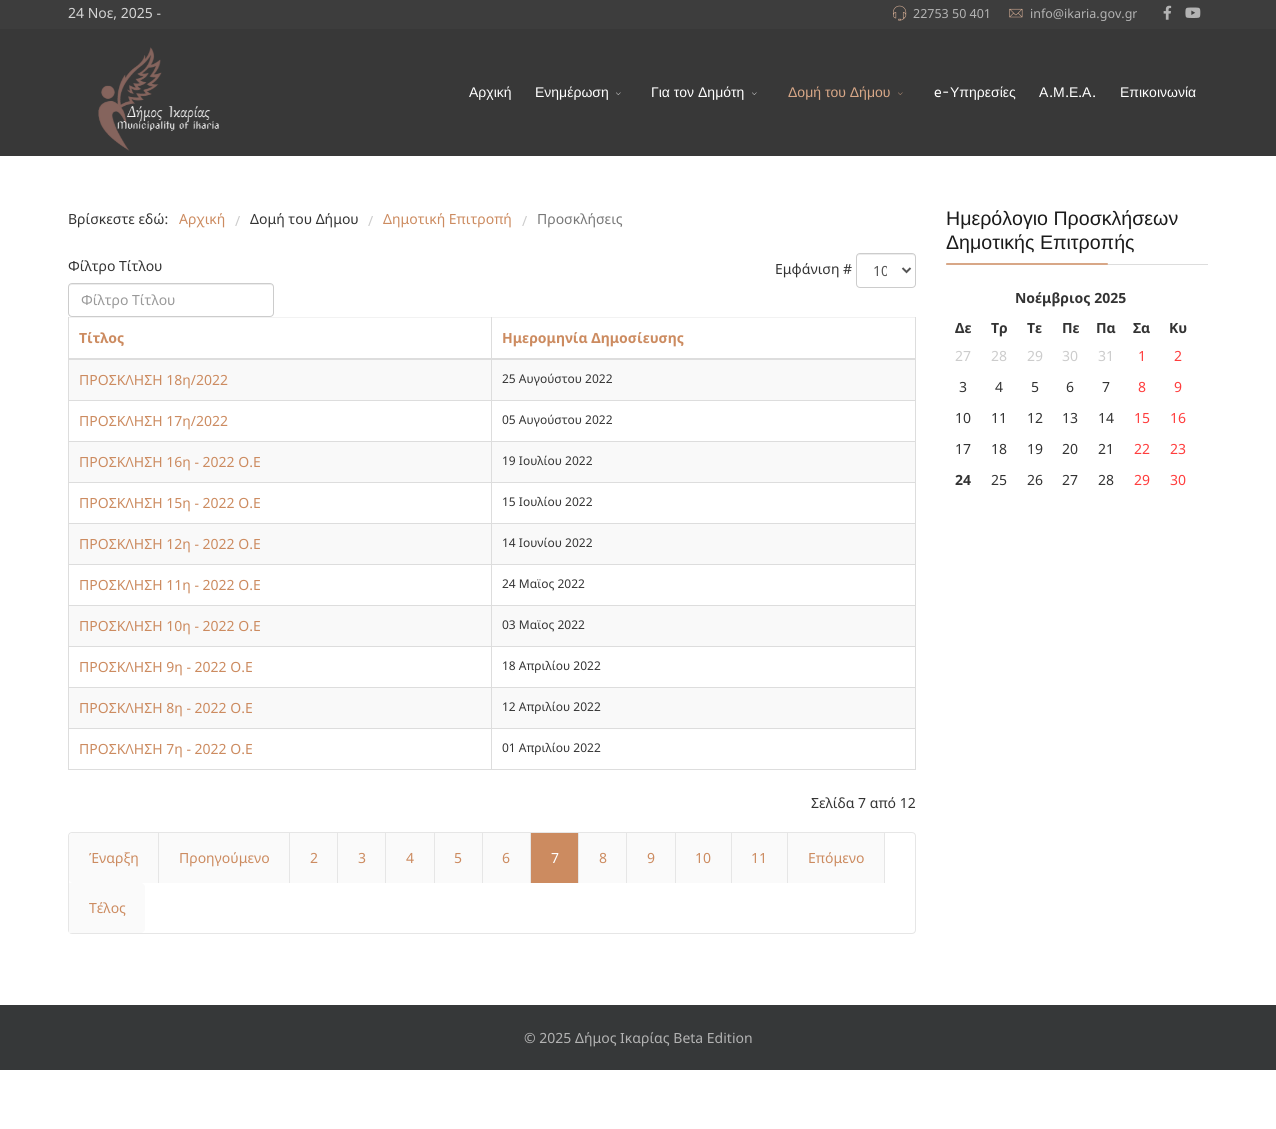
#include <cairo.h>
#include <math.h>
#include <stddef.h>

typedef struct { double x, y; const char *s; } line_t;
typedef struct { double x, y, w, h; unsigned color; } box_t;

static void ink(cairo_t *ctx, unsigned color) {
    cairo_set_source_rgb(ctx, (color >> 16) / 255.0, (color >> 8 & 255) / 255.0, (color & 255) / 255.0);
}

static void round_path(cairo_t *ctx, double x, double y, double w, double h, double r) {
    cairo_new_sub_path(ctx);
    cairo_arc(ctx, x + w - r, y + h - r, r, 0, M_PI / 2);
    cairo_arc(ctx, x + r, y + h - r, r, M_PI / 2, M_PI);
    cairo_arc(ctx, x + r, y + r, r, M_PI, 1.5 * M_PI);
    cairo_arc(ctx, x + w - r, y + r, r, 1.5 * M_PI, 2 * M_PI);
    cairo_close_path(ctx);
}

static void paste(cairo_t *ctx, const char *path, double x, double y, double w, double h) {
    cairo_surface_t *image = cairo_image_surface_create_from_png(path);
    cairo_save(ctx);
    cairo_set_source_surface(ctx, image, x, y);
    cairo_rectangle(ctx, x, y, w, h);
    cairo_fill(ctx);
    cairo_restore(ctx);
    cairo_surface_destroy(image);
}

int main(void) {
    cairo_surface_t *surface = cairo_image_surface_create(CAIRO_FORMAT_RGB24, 1276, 1129);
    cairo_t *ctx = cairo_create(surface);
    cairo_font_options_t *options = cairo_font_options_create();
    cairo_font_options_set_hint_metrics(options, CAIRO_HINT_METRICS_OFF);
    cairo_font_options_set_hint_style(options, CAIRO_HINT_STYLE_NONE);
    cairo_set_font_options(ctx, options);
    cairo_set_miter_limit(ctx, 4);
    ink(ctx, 0xFFFFFF);
    cairo_paint(ctx);
    ink(ctx, 0x3D3D3D);
    cairo_rectangle(ctx, 0, 0, 1276, 29);
    cairo_fill(ctx);
    cairo_select_font_face(ctx, "Noto Sans", CAIRO_FONT_SLANT_NORMAL, CAIRO_FONT_WEIGHT_NORMAL);
    cairo_set_font_size(ctx, 14);
    ink(ctx, 0xD4D4D4);
    cairo_move_to(ctx, 68, 18);
    cairo_show_text(ctx, "24 Νοε, 2025 -");
    paste(ctx, "media/1.png", 893, 5, 14, 16);
    cairo_set_font_size(ctx, 12.5);
    ink(ctx, 0xB3B3B3);
    cairo_move_to(ctx, 913, 18);
    cairo_show_text(ctx, "22753 50 401");
    paste(ctx, "media/2.png", 1009, 8, 14, 10);
    cairo_move_to(ctx, 1030, 18);
    cairo_show_text(ctx, "info@ikaria.gov.gr");
    paste(ctx, "media/3.png", 1163, 5, 9, 15);
    paste(ctx, "media/4.png", 1185, 7, 16, 11);
    ink(ctx, 0x383838);
    cairo_rectangle(ctx, 0, 29, 1276, 127);
    cairo_fill(ctx);
    paste(ctx, "media/5.png", 98, 47, 121, 104);
    cairo_select_font_face(ctx, "Liberation Sans", CAIRO_FONT_SLANT_NORMAL, CAIRO_FONT_WEIGHT_NORMAL);
    cairo_set_font_size(ctx, 14);
    ink(ctx, 0xFFFFFF);
    cairo_move_to(ctx, 469, 97);
    cairo_show_text(ctx, "Αρχική");
    cairo_move_to(ctx, 535, 97);
    cairo_show_text(ctx, "Ενημέρωση");
    paste(ctx, "media/6.png", 616, 92, 5, 3);
    cairo_move_to(ctx, 651, 97);
    cairo_show_text(ctx, "Για τον Δημότη");
    paste(ctx, "media/6.png", 752, 92, 5, 3);
    ink(ctx, 0xD8A787);
    cairo_move_to(ctx, 788, 97);
    cairo_show_text(ctx, "Δομή του Δήμου");
    paste(ctx, "media/7.png", 898, 92, 5, 3);
    cairo_select_font_face(ctx, "ABeeZee", CAIRO_FONT_SLANT_NORMAL, CAIRO_FONT_WEIGHT_NORMAL);
    ink(ctx, 0xFFFFFF);
    cairo_move_to(ctx, 934, 97);
    cairo_show_text(ctx, "e-");
    cairo_select_font_face(ctx, "Liberation Sans", CAIRO_FONT_SLANT_NORMAL, CAIRO_FONT_WEIGHT_NORMAL);
    cairo_move_to(ctx, 950, 97);
    cairo_show_text(ctx, "Υπηρεσίες");
    cairo_move_to(ctx, 1039, 97);
    cairo_show_text(ctx, "Α");
    cairo_select_font_face(ctx, "ABeeZee", CAIRO_FONT_SLANT_NORMAL, CAIRO_FONT_WEIGHT_NORMAL);
    cairo_move_to(ctx, 1049, 97);
    cairo_show_text(ctx, ".");
    cairo_select_font_face(ctx, "Liberation Sans", CAIRO_FONT_SLANT_NORMAL, CAIRO_FONT_WEIGHT_NORMAL);
    cairo_move_to(ctx, 1053, 97);
    cairo_show_text(ctx, "Μ");
    cairo_select_font_face(ctx, "ABeeZee", CAIRO_FONT_SLANT_NORMAL, CAIRO_FONT_WEIGHT_NORMAL);
    cairo_move_to(ctx, 1065, 97);
    cairo_show_text(ctx, ".");
    cairo_select_font_face(ctx, "Liberation Sans", CAIRO_FONT_SLANT_NORMAL, CAIRO_FONT_WEIGHT_NORMAL);
    cairo_move_to(ctx, 1069, 97);
    cairo_show_text(ctx, "Ε");
    cairo_select_font_face(ctx, "ABeeZee", CAIRO_FONT_SLANT_NORMAL, CAIRO_FONT_WEIGHT_NORMAL);
    cairo_move_to(ctx, 1078, 97);
    cairo_show_text(ctx, ".");
    cairo_select_font_face(ctx, "Liberation Sans", CAIRO_FONT_SLANT_NORMAL, CAIRO_FONT_WEIGHT_NORMAL);
    cairo_move_to(ctx, 1082, 97);
    cairo_show_text(ctx, "Α");
    cairo_select_font_face(ctx, "ABeeZee", CAIRO_FONT_SLANT_NORMAL, CAIRO_FONT_WEIGHT_NORMAL);
    cairo_move_to(ctx, 1092, 97);
    cairo_show_text(ctx, ".");
    cairo_select_font_face(ctx, "Liberation Sans", CAIRO_FONT_SLANT_NORMAL, CAIRO_FONT_WEIGHT_NORMAL);
    cairo_move_to(ctx, 1120, 97);
    cairo_show_text(ctx, "Επικοινωνία");
    cairo_select_font_face(ctx, "Noto Sans", CAIRO_FONT_SLANT_NORMAL, CAIRO_FONT_WEIGHT_NORMAL);
    ink(ctx, 0x333333);
    cairo_move_to(ctx, 68, 224);
    cairo_show_text(ctx, "Βρίσκεστε εδώ:");
    ink(ctx, 0xCC8B60);
    cairo_move_to(ctx, 179, 224);
    cairo_show_text(ctx, "Αρχική");
    ink(ctx, 0xCCCCCC);
    cairo_move_to(ctx, 235, 226);
    cairo_show_text(ctx, "/");
    ink(ctx, 0x333333);
    cairo_move_to(ctx, 250, 224);
    cairo_show_text(ctx, "Δομή του Δήμου");
    ink(ctx, 0xCCCCCC);
    cairo_move_to(ctx, 368, 226);
    cairo_show_text(ctx, "/");
    ink(ctx, 0xCC8B60);
    cairo_move_to(ctx, 383, 224);
    cairo_show_text(ctx, "Δημοτική Επιτροπή");
    ink(ctx, 0xCCCCCC);
    cairo_move_to(ctx, 522, 226);
    cairo_show_text(ctx, "/");
    ink(ctx, 0x777777);
    cairo_move_to(ctx, 537, 224);
    cairo_show_text(ctx, "Προσκλήσεις");
    ink(ctx, 0x333333);
    cairo_move_to(ctx, 68, 271);
    cairo_show_text(ctx, "Φίλτρο Τίτλου");
    ink(ctx, 0xECECEC);
    cairo_new_path(ctx);
    cairo_move_to(ctx, 72, 285);
    cairo_line_to(ctx, 270, 285);
    cairo_curve_to(ctx, 272, 285, 273, 286, 273, 288);
    cairo_curve_to(ctx, 273, 286, 272, 284, 270, 284);
    cairo_line_to(ctx, 72, 284);
    cairo_curve_to(ctx, 70, 284, 69, 286, 69, 288);
    cairo_curve_to(ctx, 69, 286, 70, 285, 72, 285);
    cairo_close_path(ctx);
    cairo_fill(ctx);
    round_path(ctx, 68.5, 283.5, 205, 33, 3.5);
    ink(ctx, 0xCCCCCC);
    cairo_set_line_width(ctx, 1);
    cairo_stroke(ctx);
    ink(ctx, 0x999999);
    cairo_move_to(ctx, 81, 305);
    cairo_show_text(ctx, "Φίλτρο Τίτλου");
    ink(ctx, 0x333333);
    cairo_move_to(ctx, 775, 274);
    cairo_show_text(ctx, "Εμφάνιση #");
    ink(ctx, 0xECECEC);
    cairo_new_path(ctx);
    cairo_move_to(ctx, 860, 255);
    cairo_line_to(ctx, 912, 255);
    cairo_curve_to(ctx, 914, 255, 915, 256, 915, 258);
    cairo_curve_to(ctx, 915, 252, 908, 254, 903, 254);
    cairo_line_to(ctx, 869, 254);
    cairo_curve_to(ctx, 864, 254, 857, 252, 857, 258);
    cairo_curve_to(ctx, 857, 256, 858, 255, 860, 255);
    cairo_close_path(ctx);
    cairo_fill(ctx);
    round_path(ctx, 856.5, 253.5, 59, 34, 3.5);
    ink(ctx, 0xCCCCCC);
    cairo_stroke(ctx);
    cairo_new_path(ctx);
    cairo_move_to(ctx, 902.5, 268);
    cairo_line_to(ctx, 906.5, 272);
    cairo_line_to(ctx, 910.5, 268);
    ink(ctx, 0x555555);
    cairo_set_line_width(ctx, 2);
    cairo_stroke(ctx);
    cairo_save(ctx);
    cairo_rectangle(ctx, 873, 260, 14, 21);
    cairo_clip(ctx);
    cairo_move_to(ctx, 873, 276);
    cairo_show_text(ctx, "10");
    cairo_restore(ctx);
    ink(ctx, 0xF2F2F2);
    cairo_rectangle(ctx, 68, 317, 848, 1);
    cairo_fill(ctx);
    cairo_select_font_face(ctx, "Noto Sans", CAIRO_FONT_SLANT_NORMAL, CAIRO_FONT_WEIGHT_BOLD);
    ink(ctx, 0xCC8B60);
    cairo_move_to(ctx, 79, 343);
    cairo_show_text(ctx, "Τίτλος");
    {
        static const box_t items[] = {
            {69, 360, 846, 40, 0xF9F9F9},
            {491, 400, 425, 1, 0xDDDDDD},
            {491, 441, 425, 1, 0xDDDDDD},
            {69, 442, 846, 40, 0xF9F9F9},
            {491, 482, 425, 1, 0xDDDDDD},
            {491, 523, 425, 1, 0xDDDDDD},
            {69, 524, 846, 40, 0xF9F9F9},
            {491, 564, 425, 1, 0xDDDDDD},
            {491, 605, 425, 1, 0xDDDDDD},
            {69, 606, 846, 40, 0xF9F9F9},
            {491, 646, 425, 1, 0xDDDDDD},
            {491, 687, 425, 1, 0xDDDDDD},
            {69, 688, 846, 40, 0xF9F9F9},
            {491, 728, 425, 1, 0xDDDDDD},
            {915, 728, 1, 42, 0xDDDDDD},
            {491, 769, 425, 1, 0xDDDDDD},
            {491, 728, 1, 42, 0xDDDDDD},
            {68, 728, 424, 1, 0xDDDDDD},
            {491, 687, 1, 42, 0xDDDDDD},
            {68, 687, 424, 1, 0xDDDDDD},
            {491, 646, 1, 42, 0xDDDDDD},
            {68, 646, 424, 1, 0xDDDDDD},
            {491, 605, 1, 42, 0xDDDDDD},
            {68, 605, 424, 1, 0xDDDDDD},
            {491, 564, 1, 42, 0xDDDDDD},
            {68, 564, 424, 1, 0xDDDDDD},
            {491, 523, 1, 42, 0xDDDDDD},
            {68, 523, 424, 1, 0xDDDDDD},
            {491, 482, 1, 42, 0xDDDDDD},
            {68, 482, 424, 1, 0xDDDDDD},
            {491, 441, 1, 42, 0xDDDDDD},
            {68, 441, 424, 1, 0xDDDDDD},
            {491, 400, 1, 42, 0xDDDDDD},
            {68, 400, 424, 1, 0xDDDDDD},
            {491, 317, 1, 84, 0xDDDDDD},
            {68, 769, 424, 1, 0xDDDDDD},
            {68, 728, 1, 42, 0xDDDDDD},
            {68, 687, 1, 42, 0xDDDDDD},
            {68, 646, 1, 42, 0xDDDDDD},
            {68, 605, 1, 42, 0xDDDDDD},
            {68, 564, 1, 42, 0xDDDDDD},
            {68, 523, 1, 42, 0xDDDDDD},
            {68, 482, 1, 42, 0xDDDDDD},
            {68, 441, 1, 42, 0xDDDDDD},
            {68, 317, 1, 125, 0xDDDDDD},
            {915, 687, 1, 42, 0xDDDDDD},
            {915, 646, 1, 42, 0xDDDDDD},
            {915, 605, 1, 42, 0xDDDDDD},
            {915, 564, 1, 42, 0xDDDDDD},
            {915, 523, 1, 42, 0xDDDDDD},
            {915, 482, 1, 42, 0xDDDDDD},
            {915, 441, 1, 42, 0xDDDDDD},
            {915, 317, 1, 125, 0xDDDDDD},
            {68, 358, 848, 2, 0xDDDDDD},
        };
        for (size_t i = 0; i < sizeof items / sizeof *items; i++) {
            ink(ctx, items[i].color);
            cairo_rectangle(ctx, items[i].x, items[i].y, items[i].w, items[i].h);
            cairo_fill(ctx);
        }
    }
    ink(ctx, 0xCC8B60);
    cairo_move_to(ctx, 502, 343);
    cairo_show_text(ctx, "Ημερομηνία Δημοσίευσης");
    cairo_select_font_face(ctx, "Noto Sans", CAIRO_FONT_SLANT_NORMAL, CAIRO_FONT_WEIGHT_NORMAL);
    cairo_move_to(ctx, 79, 385);
    cairo_show_text(ctx, "ΠΡΟΣΚΛΗΣΗ 18η/2022");
    cairo_set_font_size(ctx, 12);
    ink(ctx, 0x333333);
    cairo_move_to(ctx, 502, 383);
    cairo_show_text(ctx, "25 Αυγούστου 2022");
    cairo_set_font_size(ctx, 14);
    ink(ctx, 0xCC8B60);
    cairo_move_to(ctx, 79, 426);
    cairo_show_text(ctx, "ΠΡΟΣΚΛΗΣΗ 17η/2022");
    cairo_set_font_size(ctx, 12);
    ink(ctx, 0x333333);
    cairo_move_to(ctx, 502, 424);
    cairo_show_text(ctx, "05 Αυγούστου 2022");
    cairo_set_font_size(ctx, 14);
    ink(ctx, 0xCC8B60);
    cairo_move_to(ctx, 79, 467);
    cairo_show_text(ctx, "ΠΡΟΣΚΛΗΣΗ 16η - 2022 Ο.Ε");
    cairo_set_font_size(ctx, 12);
    ink(ctx, 0x333333);
    cairo_move_to(ctx, 502, 465);
    cairo_show_text(ctx, "19 Ιουλίου 2022");
    cairo_set_font_size(ctx, 14);
    ink(ctx, 0xCC8B60);
    cairo_move_to(ctx, 79, 508);
    cairo_show_text(ctx, "ΠΡΟΣΚΛΗΣΗ 15η - 2022 Ο.Ε");
    cairo_set_font_size(ctx, 12);
    ink(ctx, 0x333333);
    cairo_move_to(ctx, 502, 506);
    cairo_show_text(ctx, "15 Ιουλίου 2022");
    cairo_set_font_size(ctx, 14);
    ink(ctx, 0xCC8B60);
    cairo_move_to(ctx, 79, 549);
    cairo_show_text(ctx, "ΠΡΟΣΚΛΗΣΗ 12η - 2022 Ο.Ε");
    cairo_set_font_size(ctx, 12);
    ink(ctx, 0x333333);
    cairo_move_to(ctx, 502, 547);
    cairo_show_text(ctx, "14 Ιουνίου 2022");
    cairo_set_font_size(ctx, 14);
    ink(ctx, 0xCC8B60);
    cairo_move_to(ctx, 79, 590);
    cairo_show_text(ctx, "ΠΡΟΣΚΛΗΣΗ 11η - 2022 Ο.Ε");
    cairo_set_font_size(ctx, 12);
    ink(ctx, 0x333333);
    cairo_move_to(ctx, 502, 588);
    cairo_show_text(ctx, "24 Μαϊος 2022");
    cairo_set_font_size(ctx, 14);
    ink(ctx, 0xCC8B60);
    cairo_move_to(ctx, 79, 631);
    cairo_show_text(ctx, "ΠΡΟΣΚΛΗΣΗ 10η - 2022 Ο.Ε");
    cairo_set_font_size(ctx, 12);
    ink(ctx, 0x333333);
    cairo_move_to(ctx, 502, 629);
    cairo_show_text(ctx, "03 Μαϊος 2022");
    cairo_set_font_size(ctx, 14);
    ink(ctx, 0xCC8B60);
    cairo_move_to(ctx, 79, 672);
    cairo_show_text(ctx, "ΠΡΟΣΚΛΗΣΗ 9η - 2022 Ο.Ε");
    cairo_set_font_size(ctx, 12);
    ink(ctx, 0x333333);
    cairo_move_to(ctx, 502, 670);
    cairo_show_text(ctx, "18 Απριλίου 2022");
    cairo_set_font_size(ctx, 14);
    ink(ctx, 0xCC8B60);
    cairo_move_to(ctx, 79, 713);
    cairo_show_text(ctx, "ΠΡΟΣΚΛΗΣΗ 8η - 2022 Ο.Ε");
    cairo_set_font_size(ctx, 12);
    ink(ctx, 0x333333);
    cairo_move_to(ctx, 502, 711);
    cairo_show_text(ctx, "12 Απριλίου 2022");
    cairo_set_font_size(ctx, 14);
    ink(ctx, 0xCC8B60);
    cairo_move_to(ctx, 79, 754);
    cairo_show_text(ctx, "ΠΡΟΣΚΛΗΣΗ 7η - 2022 Ο.Ε");
    cairo_set_font_size(ctx, 12);
    ink(ctx, 0x333333);
    cairo_move_to(ctx, 502, 752);
    cairo_show_text(ctx, "01 Απριλίου 2022");
    cairo_set_font_size(ctx, 14);
    cairo_move_to(ctx, 811, 808);
    cairo_show_text(ctx, "Σελίδα 7 από 12");
    round_path(ctx, 68.5, 832.5, 847, 101, 3.5);
    ink(ctx, 0xE6E6E6);
    cairo_set_line_width(ctx, 1);
    cairo_stroke(ctx);
    cairo_rectangle(ctx, 158, 833, 1, 50);
    cairo_fill(ctx);
    ink(ctx, 0xFAFAFA);
    cairo_new_path(ctx);
    cairo_move_to(ctx, 73, 833);
    cairo_line_to(ctx, 158, 833);
    cairo_line_to(ctx, 158, 883);
    cairo_line_to(ctx, 73, 883);
    cairo_curve_to(ctx, 71, 883, 69, 881, 69, 879);
    cairo_line_to(ctx, 69, 837);
    cairo_curve_to(ctx, 69, 835, 71, 833, 73, 833);
    cairo_close_path(ctx);
    cairo_fill(ctx);
    ink(ctx, 0xCC8B60);
    cairo_move_to(ctx, 89, 863);
    cairo_show_text(ctx, "Έναρξη");
    ink(ctx, 0xE6E6E6);
    cairo_rectangle(ctx, 289, 833, 1, 50);
    cairo_fill(ctx);
    ink(ctx, 0xFAFAFA);
    cairo_rectangle(ctx, 159, 833, 130, 50);
    cairo_fill(ctx);
    ink(ctx, 0xCC8B60);
    cairo_move_to(ctx, 179, 863);
    cairo_show_text(ctx, "Προηγούμενο");
    ink(ctx, 0xE6E6E6);
    cairo_rectangle(ctx, 337, 833, 1, 50);
    cairo_fill(ctx);
    ink(ctx, 0xFAFAFA);
    cairo_rectangle(ctx, 290, 833, 47, 50);
    cairo_fill(ctx);
    ink(ctx, 0xCC8B60);
    cairo_move_to(ctx, 310, 863);
    cairo_show_text(ctx, "2");
    ink(ctx, 0xE6E6E6);
    cairo_rectangle(ctx, 385, 833, 1, 50);
    cairo_fill(ctx);
    ink(ctx, 0xFAFAFA);
    cairo_rectangle(ctx, 338, 833, 47, 50);
    cairo_fill(ctx);
    ink(ctx, 0xCC8B60);
    cairo_move_to(ctx, 358, 863);
    cairo_show_text(ctx, "3");
    ink(ctx, 0xE6E6E6);
    cairo_rectangle(ctx, 434, 833, 1, 50);
    cairo_fill(ctx);
    ink(ctx, 0xFAFAFA);
    cairo_rectangle(ctx, 386, 833, 48, 50);
    cairo_fill(ctx);
    ink(ctx, 0xCC8B60);
    cairo_move_to(ctx, 406, 863);
    cairo_show_text(ctx, "4");
    ink(ctx, 0xE6E6E6);
    cairo_rectangle(ctx, 482, 833, 1, 50);
    cairo_fill(ctx);
    ink(ctx, 0xFAFAFA);
    cairo_rectangle(ctx, 435, 833, 47, 50);
    cairo_fill(ctx);
    ink(ctx, 0xCC8B60);
    cairo_move_to(ctx, 454, 863);
    cairo_show_text(ctx, "5");
    ink(ctx, 0xE6E6E6);
    cairo_rectangle(ctx, 530, 833, 1, 50);
    cairo_fill(ctx);
    ink(ctx, 0xFAFAFA);
    cairo_rectangle(ctx, 483, 833, 47, 50);
    cairo_fill(ctx);
    ink(ctx, 0xCC8B60);
    cairo_move_to(ctx, 502, 863);
    cairo_show_text(ctx, "6");
    ink(ctx, 0xE6E6E6);
    cairo_rectangle(ctx, 578, 833, 1, 50);
    cairo_fill(ctx);
    ink(ctx, 0xCC8B60);
    cairo_rectangle(ctx, 531, 833, 47, 50);
    cairo_fill(ctx);
    ink(ctx, 0xFFFFFF);
    cairo_move_to(ctx, 551, 863);
    cairo_show_text(ctx, "7");
    ink(ctx, 0xE6E6E6);
    cairo_rectangle(ctx, 626, 833, 1, 50);
    cairo_fill(ctx);
    ink(ctx, 0xFAFAFA);
    cairo_rectangle(ctx, 579, 833, 47, 50);
    cairo_fill(ctx);
    ink(ctx, 0xCC8B60);
    cairo_move_to(ctx, 599, 863);
    cairo_show_text(ctx, "8");
    ink(ctx, 0xE6E6E6);
    cairo_rectangle(ctx, 675, 833, 1, 50);
    cairo_fill(ctx);
    ink(ctx, 0xFAFAFA);
    cairo_rectangle(ctx, 627, 833, 48, 50);
    cairo_fill(ctx);
    ink(ctx, 0xCC8B60);
    cairo_move_to(ctx, 647, 863);
    cairo_show_text(ctx, "9");
    ink(ctx, 0xE6E6E6);
    cairo_rectangle(ctx, 731, 833, 1, 50);
    cairo_fill(ctx);
    ink(ctx, 0xFAFAFA);
    cairo_rectangle(ctx, 676, 833, 55, 50);
    cairo_fill(ctx);
    ink(ctx, 0xCC8B60);
    cairo_move_to(ctx, 695, 863);
    cairo_show_text(ctx, "10");
    ink(ctx, 0xE6E6E6);
    cairo_rectangle(ctx, 787, 833, 1, 50);
    cairo_fill(ctx);
    ink(ctx, 0xFAFAFA);
    cairo_rectangle(ctx, 732, 833, 55, 50);
    cairo_fill(ctx);
    ink(ctx, 0xCC8B60);
    cairo_move_to(ctx, 751, 863);
    cairo_show_text(ctx, "11");
    ink(ctx, 0xE6E6E6);
    cairo_rectangle(ctx, 884, 833, 1, 50);
    cairo_fill(ctx);
    ink(ctx, 0xFAFAFA);
    cairo_rectangle(ctx, 788, 833, 96, 50);
    cairo_fill(ctx);
    ink(ctx, 0xCC8B60);
    cairo_move_to(ctx, 808, 863);
    cairo_show_text(ctx, "Επόμενο");
    ink(ctx, 0xFAFAFA);
    cairo_new_path(ctx);
    cairo_move_to(ctx, 69, 883);
    cairo_line_to(ctx, 141, 883);
    cairo_curve_to(ctx, 143, 883, 145, 885, 145, 887);
    cairo_line_to(ctx, 145, 929);
    cairo_curve_to(ctx, 145, 931, 143, 933, 141, 933);
    cairo_line_to(ctx, 69, 933);
    cairo_close_path(ctx);
    cairo_fill(ctx);
    ink(ctx, 0xCC8B60);
    cairo_move_to(ctx, 89, 913);
    cairo_show_text(ctx, "Τέλος");
    ink(ctx, 0xDDDDDD);
    cairo_rectangle(ctx, 946, 264, 262, 1);
    cairo_fill(ctx);
    cairo_select_font_face(ctx, "Liberation Sans", CAIRO_FONT_SLANT_NORMAL, CAIRO_FONT_WEIGHT_NORMAL);
    cairo_set_font_size(ctx, 19.6);
    ink(ctx, 0x1A1A1A);
    cairo_move_to(ctx, 946, 225);
    cairo_show_text(ctx, "Ημερόλογιο Προσκλήσεων");
    cairo_move_to(ctx, 946, 249);
    cairo_show_text(ctx, "Δημοτικής Επιτροπής");
    ink(ctx, 0xD8A787);
    round_path(ctx, 946, 263, 162, 2, 1);
    cairo_fill(ctx);
    cairo_select_font_face(ctx, "Noto Sans", CAIRO_FONT_SLANT_NORMAL, CAIRO_FONT_WEIGHT_BOLD);
    cairo_set_font_size(ctx, 14);
    ink(ctx, 0x333333);
    {
        static const line_t items[] = {
            {1015, 303, "Νοέμβριος 2025"},
            {955, 333, "Δε"},
            {991, 333, "Τρ"},
            {1027, 333, "Τε"},
            {1062, 333, "Πε"},
            {1096, 333, "Πα"},
            {1133, 333, "Σα"},
            {1169, 333, "Κυ"},
        };
        for (size_t i = 0; i < sizeof items / sizeof *items; i++) {
            cairo_move_to(ctx, items[i].x, items[i].y);
            cairo_show_text(ctx, items[i].s);
        }
    }
    cairo_select_font_face(ctx, "Noto Sans", CAIRO_FONT_SLANT_NORMAL, CAIRO_FONT_WEIGHT_NORMAL);
    ink(ctx, 0xCCCCCC);
    {
        static const line_t items[] = {
            {955, 361, "27"},
            {991, 361, "28"},
            {1027, 361, "29"},
            {1062, 361, "30"},
            {1098, 361, "31"},
        };
        for (size_t i = 0; i < sizeof items / sizeof *items; i++) {
            cairo_move_to(ctx, items[i].x, items[i].y);
            cairo_show_text(ctx, items[i].s);
        }
    }
    ink(ctx, 0xFF3D3D);
    cairo_move_to(ctx, 1138, 361);
    cairo_show_text(ctx, "1");
    cairo_move_to(ctx, 1174, 361);
    cairo_show_text(ctx, "2");
    ink(ctx, 0x333333);
    {
        static const line_t items[] = {
            {959, 392, "3"},
            {995, 392, "4"},
            {1031, 392, "5"},
            {1066, 392, "6"},
            {1102, 392, "7"},
        };
        for (size_t i = 0; i < sizeof items / sizeof *items; i++) {
            cairo_move_to(ctx, items[i].x, items[i].y);
            cairo_show_text(ctx, items[i].s);
        }
    }
    ink(ctx, 0xFF3D3D);
    cairo_move_to(ctx, 1138, 392);
    cairo_show_text(ctx, "8");
    cairo_move_to(ctx, 1174, 392);
    cairo_show_text(ctx, "9");
    ink(ctx, 0x333333);
    {
        static const line_t items[] = {
            {955, 423, "10"},
            {991, 423, "11"},
            {1027, 423, "12"},
            {1062, 423, "13"},
            {1098, 423, "14"},
        };
        for (size_t i = 0; i < sizeof items / sizeof *items; i++) {
            cairo_move_to(ctx, items[i].x, items[i].y);
            cairo_show_text(ctx, items[i].s);
        }
    }
    ink(ctx, 0xFF3D3D);
    cairo_move_to(ctx, 1134, 423);
    cairo_show_text(ctx, "15");
    cairo_move_to(ctx, 1170, 423);
    cairo_show_text(ctx, "16");
    ink(ctx, 0x333333);
    {
        static const line_t items[] = {
            {955, 454, "17"},
            {991, 454, "18"},
            {1027, 454, "19"},
            {1062, 454, "20"},
            {1098, 454, "21"},
        };
        for (size_t i = 0; i < sizeof items / sizeof *items; i++) {
            cairo_move_to(ctx, items[i].x, items[i].y);
            cairo_show_text(ctx, items[i].s);
        }
    }
    ink(ctx, 0xFF3D3D);
    cairo_move_to(ctx, 1134, 454);
    cairo_show_text(ctx, "22");
    cairo_move_to(ctx, 1170, 454);
    cairo_show_text(ctx, "23");
    cairo_select_font_face(ctx, "Noto Sans", CAIRO_FONT_SLANT_NORMAL, CAIRO_FONT_WEIGHT_BOLD);
    ink(ctx, 0x333333);
    cairo_move_to(ctx, 955, 485);
    cairo_show_text(ctx, "24");
    cairo_select_font_face(ctx, "Noto Sans", CAIRO_FONT_SLANT_NORMAL, CAIRO_FONT_WEIGHT_NORMAL);
    {
        static const line_t items[] = {
            {991, 485, "25"},
            {1027, 485, "26"},
            {1062, 485, "27"},
            {1098, 485, "28"},
        };
        for (size_t i = 0; i < sizeof items / sizeof *items; i++) {
            cairo_move_to(ctx, items[i].x, items[i].y);
            cairo_show_text(ctx, items[i].s);
        }
    }
    ink(ctx, 0xFF3D3D);
    cairo_move_to(ctx, 1134, 485);
    cairo_show_text(ctx, "29");
    cairo_move_to(ctx, 1170, 485);
    cairo_show_text(ctx, "30");
    ink(ctx, 0x363839);
    cairo_rectangle(ctx, 0, 1005, 1276, 65);
    cairo_fill(ctx);
    ink(ctx, 0xB3B3B3);
    cairo_move_to(ctx, 524, 1043);
    cairo_show_text(ctx, "© 2025 Δήμος Ικαρίας Beta Edition");
    cairo_surface_write_to_png(surface, "image.png");
    cairo_font_options_destroy(options);
    cairo_destroy(ctx);
    cairo_surface_destroy(surface);
    return 0;
}
